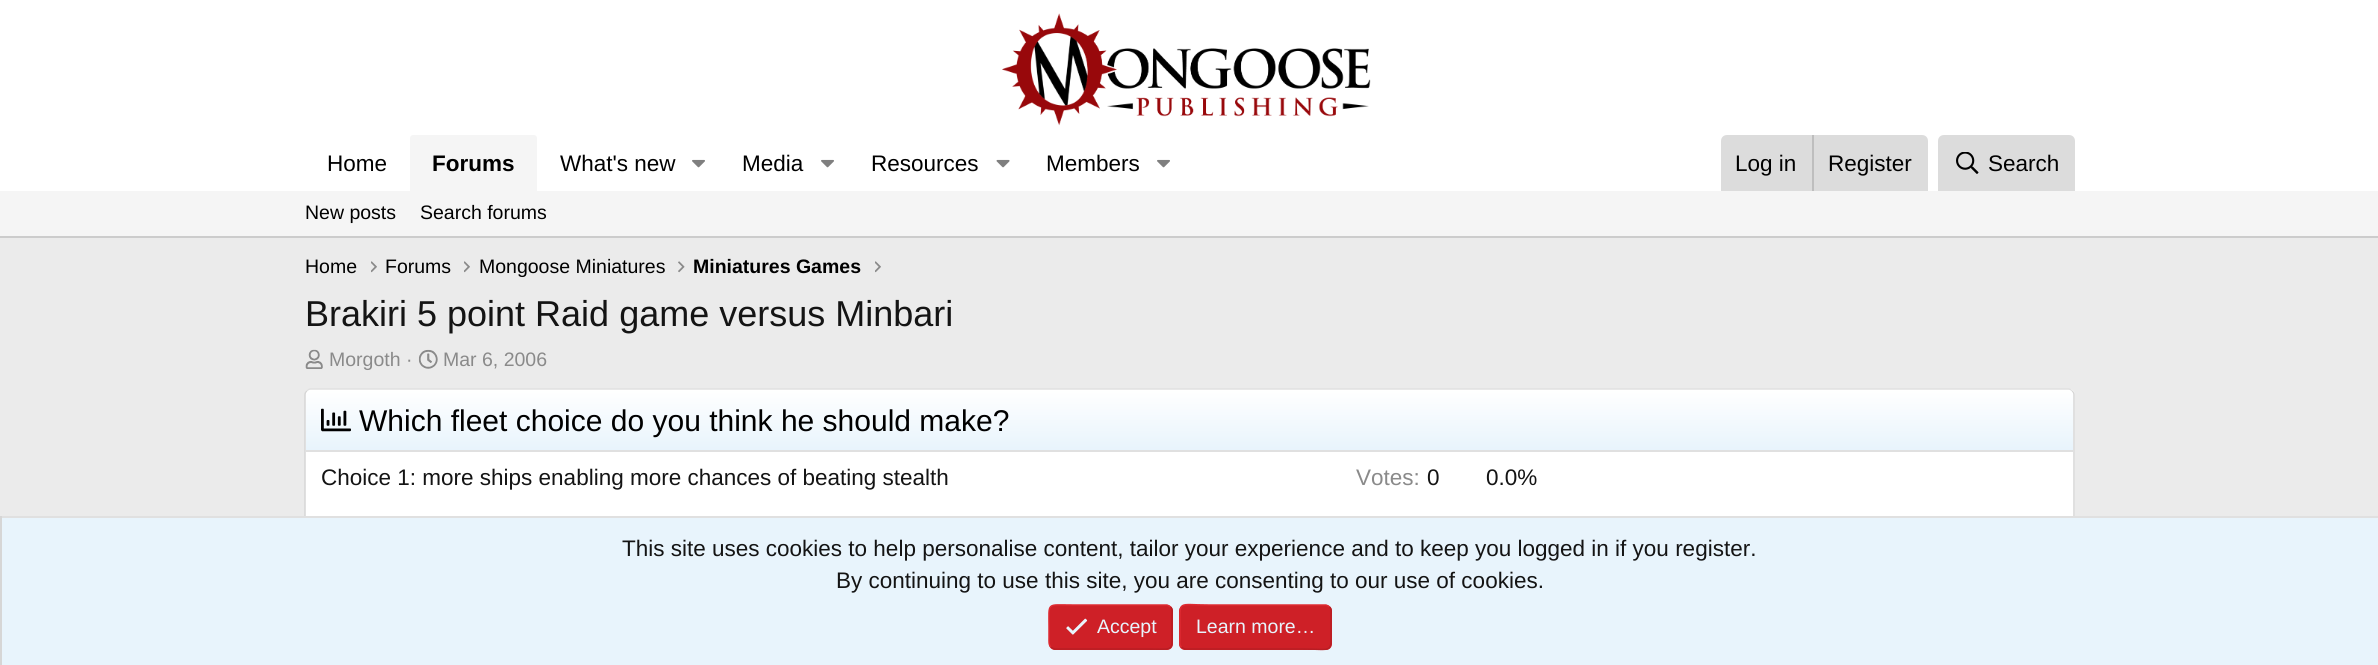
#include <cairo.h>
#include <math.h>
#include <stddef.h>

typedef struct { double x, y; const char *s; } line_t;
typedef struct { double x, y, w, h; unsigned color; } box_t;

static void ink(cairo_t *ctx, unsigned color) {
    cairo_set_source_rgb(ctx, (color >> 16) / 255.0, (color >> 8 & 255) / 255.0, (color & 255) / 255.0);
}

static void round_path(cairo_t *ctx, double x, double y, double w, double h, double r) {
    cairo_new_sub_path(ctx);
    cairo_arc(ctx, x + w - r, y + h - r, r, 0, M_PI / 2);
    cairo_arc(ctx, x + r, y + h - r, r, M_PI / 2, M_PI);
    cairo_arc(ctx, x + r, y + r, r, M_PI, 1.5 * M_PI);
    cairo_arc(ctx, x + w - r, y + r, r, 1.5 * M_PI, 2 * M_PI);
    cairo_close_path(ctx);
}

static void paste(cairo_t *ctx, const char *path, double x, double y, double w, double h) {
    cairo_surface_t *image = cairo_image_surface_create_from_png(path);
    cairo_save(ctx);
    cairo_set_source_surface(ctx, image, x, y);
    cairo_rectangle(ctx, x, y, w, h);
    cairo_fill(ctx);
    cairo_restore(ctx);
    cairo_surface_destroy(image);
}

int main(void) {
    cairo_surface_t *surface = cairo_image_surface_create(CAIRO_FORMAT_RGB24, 2378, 665);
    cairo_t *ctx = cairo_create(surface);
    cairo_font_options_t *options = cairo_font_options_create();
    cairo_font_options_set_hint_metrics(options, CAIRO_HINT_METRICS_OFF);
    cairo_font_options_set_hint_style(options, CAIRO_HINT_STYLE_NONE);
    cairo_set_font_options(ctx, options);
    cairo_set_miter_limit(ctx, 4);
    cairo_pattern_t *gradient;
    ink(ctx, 0xEBEBEB);
    cairo_paint(ctx);
    ink(ctx, 0xFFFFFF);
    cairo_rectangle(ctx, 0, 0, 2378, 191);
    cairo_fill(ctx);
    paste(ctx, "media/1.png", 1002, 13, 369, 113);
    cairo_select_font_face(ctx, "Liberation Sans", CAIRO_FONT_SLANT_NORMAL, CAIRO_FONT_WEIGHT_NORMAL);
    cairo_set_font_size(ctx, 22.5);
    ink(ctx, 0x000000);
    cairo_move_to(ctx, 327, 171);
    cairo_show_text(ctx, "Home");
    ink(ctx, 0xF5F5F5);
    cairo_new_path(ctx);
    cairo_move_to(ctx, 413, 135);
    cairo_line_to(ctx, 534, 135);
    cairo_curve_to(ctx, 535.5, 135, 537, 136.5, 537, 138);
    cairo_line_to(ctx, 537, 191);
    cairo_line_to(ctx, 410, 191);
    cairo_line_to(ctx, 410, 138);
    cairo_curve_to(ctx, 410, 136.5, 411.5, 135, 413, 135);
    cairo_close_path(ctx);
    cairo_fill(ctx);
    cairo_select_font_face(ctx, "Liberation Sans", CAIRO_FONT_SLANT_NORMAL, CAIRO_FONT_WEIGHT_BOLD);
    ink(ctx, 0x000000);
    cairo_move_to(ctx, 432, 171);
    cairo_show_text(ctx, "Forums");
    cairo_select_font_face(ctx, "Liberation Sans", CAIRO_FONT_SLANT_NORMAL, CAIRO_FONT_WEIGHT_NORMAL);
    cairo_move_to(ctx, 560, 171);
    cairo_show_text(ctx, "What's new");
    paste(ctx, "media/2.png", 692, 159, 13, 9);
    cairo_move_to(ctx, 742, 171);
    cairo_show_text(ctx, "Media");
    paste(ctx, "media/2.png", 821, 159, 13, 9);
    cairo_move_to(ctx, 871, 171);
    cairo_show_text(ctx, "Resources");
    paste(ctx, "media/3.png", 996, 159, 14, 9);
    cairo_move_to(ctx, 1046, 171);
    cairo_show_text(ctx, "Members");
    paste(ctx, "media/2.png", 1157, 159, 13, 9);
    ink(ctx, 0xDCDCDC);
    cairo_new_path(ctx);
    cairo_move_to(ctx, 1727, 135);
    cairo_line_to(ctx, 1922, 135);
    cairo_curve_to(ctx, 1925.5, 135, 1928, 137.5, 1928, 141);
    cairo_line_to(ctx, 1928, 191);
    cairo_line_to(ctx, 1721, 191);
    cairo_line_to(ctx, 1721, 141);
    cairo_curve_to(ctx, 1721, 137.5, 1723.5, 135, 1727, 135);
    cairo_close_path(ctx);
    cairo_fill(ctx);
    ink(ctx, 0x000000);
    cairo_move_to(ctx, 1735, 171);
    cairo_show_text(ctx, "Log in");
    ink(ctx, 0xBEBEBE);
    cairo_rectangle(ctx, 1812, 135, 2, 56);
    cairo_fill(ctx);
    ink(ctx, 0x000000);
    cairo_move_to(ctx, 1828, 171);
    cairo_show_text(ctx, "Register");
    ink(ctx, 0xDCDCDC);
    cairo_new_path(ctx);
    cairo_move_to(ctx, 1944, 135);
    cairo_line_to(ctx, 2069, 135);
    cairo_curve_to(ctx, 2072.5, 135, 2075, 137.5, 2075, 141);
    cairo_line_to(ctx, 2075, 191);
    cairo_line_to(ctx, 1938, 191);
    cairo_line_to(ctx, 1938, 141);
    cairo_curve_to(ctx, 1938, 137.5, 1940.5, 135, 1944, 135);
    cairo_close_path(ctx);
    cairo_fill(ctx);
    paste(ctx, "media/4.png", 1956, 152, 23, 22);
    ink(ctx, 0x000000);
    cairo_move_to(ctx, 1988, 171);
    cairo_show_text(ctx, "Search");
    ink(ctx, 0xF5F5F5);
    cairo_rectangle(ctx, 0, 191, 2378, 45);
    cairo_fill(ctx);
    ink(ctx, 0xCCCCCC);
    cairo_rectangle(ctx, 0, 236, 2378, 2);
    cairo_fill(ctx);
    cairo_set_font_size(ctx, 19.5);
    ink(ctx, 0x000000);
    {
        static const line_t items[] = {
            {305, 219, "New posts"},
            {420, 219, "Search forums"},
            {305, 273, "Home"},
        };
        for (size_t i = 0; i < sizeof items / sizeof *items; i++) {
            cairo_move_to(ctx, items[i].x, items[i].y);
            cairo_show_text(ctx, items[i].s);
        }
    }
    paste(ctx, "media/5.png", 371, 261, 6, 12);
    cairo_move_to(ctx, 385, 273);
    cairo_show_text(ctx, "Forums");
    paste(ctx, "media/5.png", 464, 261, 6, 12);
    cairo_move_to(ctx, 479, 273);
    cairo_show_text(ctx, "Mongoose Miniatures");
    paste(ctx, "media/6.png", 678, 261, 7, 12);
    cairo_select_font_face(ctx, "Liberation Sans", CAIRO_FONT_SLANT_NORMAL, CAIRO_FONT_WEIGHT_BOLD);
    cairo_move_to(ctx, 693, 273);
    cairo_show_text(ctx, "Miniatures Games");
    paste(ctx, "media/5.png", 875, 261, 6, 12);
    cairo_select_font_face(ctx, "Liberation Sans", CAIRO_FONT_SLANT_NORMAL, CAIRO_FONT_WEIGHT_NORMAL);
    cairo_set_font_size(ctx, 36);
    ink(ctx, 0x141414);
    cairo_move_to(ctx, 305, 326);
    cairo_show_text(ctx, "Brakiri 5 point Raid game versus Minbari");
    paste(ctx, "media/7.png", 305, 349, 18, 20);
    cairo_set_font_size(ctx, 19.5);
    ink(ctx, 0x8A8A8A);
    cairo_move_to(ctx, 329, 366);
    cairo_show_text(ctx, "Morgoth ·");
    paste(ctx, "media/8.png", 418, 349, 20, 20);
    cairo_move_to(ctx, 443, 366);
    cairo_show_text(ctx, "Mar 6, 2006");
    ink(ctx, 0xFFFFFF);
    round_path(ctx, 305, 389, 1770, 210, 6);
    cairo_fill(ctx);
    cairo_new_path(ctx);
    cairo_move_to(ctx, 307, 391);
    cairo_curve_to(ctx, 308, 390, 309, 389, 310.5, 389);
    cairo_line_to(ctx, 2068.5, 389);
    cairo_curve_to(ctx, 2070, 389, 2071, 390, 2072, 391);
    ink(ctx, 0xE0E0E0);
    cairo_set_line_width(ctx, 1.5);
    cairo_stroke(ctx);
    cairo_new_path(ctx);
    cairo_move_to(ctx, 2072, 391);
    cairo_curve_to(ctx, 2073, 392, 2074, 393, 2074, 394.5);
    cairo_line_to(ctx, 2074, 592.5);
    cairo_curve_to(ctx, 2074, 594, 2073, 595, 2072, 596);
    ink(ctx, 0xD6D6D6);
    cairo_stroke(ctx);
    cairo_new_path(ctx);
    cairo_move_to(ctx, 307, 596);
    cairo_curve_to(ctx, 306, 595, 305, 594, 305, 592.5);
    cairo_line_to(ctx, 305, 394.5);
    cairo_curve_to(ctx, 305, 393, 306, 392, 307, 391);
    cairo_stroke(ctx);
    gradient = cairo_pattern_create_linear(1190, 450, 1190, 390);
    cairo_pattern_add_color_stop_rgba(gradient, 0, 0.91, 0.957, 0.988, 1);
    cairo_pattern_add_color_stop_rgba(gradient, 1, 1, 1, 1, 1);
    cairo_set_source(ctx, gradient);
    cairo_pattern_destroy(gradient);
    cairo_new_path(ctx);
    cairo_move_to(ctx, 311, 390);
    cairo_line_to(ctx, 2068, 390);
    cairo_curve_to(ctx, 2071, 390, 2073, 392, 2073, 395);
    cairo_line_to(ctx, 2073, 450);
    cairo_line_to(ctx, 306, 450);
    cairo_line_to(ctx, 306, 395);
    cairo_curve_to(ctx, 306, 392, 308, 390, 311, 390);
    cairo_close_path(ctx);
    cairo_fill(ctx);
    ink(ctx, 0xE0E0E0);
    cairo_rectangle(ctx, 306, 450, 1767, 2);
    cairo_fill(ctx);
    paste(ctx, "media/9.png", 321, 408, 30, 24);
    cairo_set_font_size(ctx, 30);
    ink(ctx, 0x000000);
    cairo_move_to(ctx, 359, 431);
    cairo_show_text(ctx, "Which fleet choice do you think he should make?");
    cairo_set_font_size(ctx, 22.5);
    ink(ctx, 0x141414);
    cairo_move_to(ctx, 321, 485);
    cairo_show_text(ctx, "Choice 1: more ships enabling more chances of beating stealth");
    ink(ctx, 0x8A8A8A);
    cairo_move_to(ctx, 1356, 485);
    cairo_show_text(ctx, "Votes:");
    ink(ctx, 0x141414);
    cairo_move_to(ctx, 1427, 485);
    cairo_show_text(ctx, "0");
    cairo_move_to(ctx, 1486, 485);
    cairo_show_text(ctx, "0.0%");
    {
        static const box_t items[] = {
            {2, 518, 2376, 147, 0xE8F4FC},
            {0, 516, 2378, 2, 0xE0E0E0},
            {0, 516, 2, 149, 0xD6D6D6},
        };
        for (size_t i = 0; i < sizeof items / sizeof *items; i++) {
            ink(ctx, items[i].color);
            cairo_rectangle(ctx, items[i].x, items[i].y, items[i].w, items[i].h);
            cairo_fill(ctx);
        }
    }
    ink(ctx, 0x141414);
    cairo_move_to(ctx, 622, 556);
    cairo_show_text(ctx, "This site uses cookies to help personalise content, tailor your experience and to keep you logged in if you register.");
    cairo_move_to(ctx, 836, 588);
    cairo_show_text(ctx, "By continuing to use this site, you are consenting to our use of cookies.");
    ink(ctx, 0xCE2027);
    round_path(ctx, 1049, 605, 124, 45, 6);
    cairo_fill(ctx);
    cairo_new_path(ctx);
    cairo_move_to(ctx, 1170.5, 607);
    cairo_curve_to(ctx, 1173, 609, 1172, 613, 1172, 616);
    cairo_line_to(ctx, 1172, 627);
    cairo_curve_to(ctx, 1172, 652.5, 1175.5, 649, 1148, 649);
    cairo_line_to(ctx, 1054.5, 649);
    cairo_curve_to(ctx, 1053, 648.5, 1052, 648, 1051, 647);
    ink(ctx, 0xB81D23);
    cairo_stroke(ctx);
    cairo_new_path(ctx);
    cairo_move_to(ctx, 1051, 647);
    cairo_curve_to(ctx, 1048.5, 645, 1049, 641, 1049, 638);
    cairo_line_to(ctx, 1049, 627);
    cairo_curve_to(ctx, 1049, 601.5, 1046, 605, 1073, 605);
    cairo_line_to(ctx, 1167, 605);
    cairo_curve_to(ctx, 1168.5, 605.5, 1169.5, 606, 1170.5, 607);
    ink(ctx, 0xDE2A31);
    cairo_stroke(ctx);
    paste(ctx, "media/10.png", 1066, 618, 22, 17);
    cairo_set_font_size(ctx, 19.5);
    ink(ctx, 0xE8F4FC);
    cairo_move_to(ctx, 1097, 633);
    cairo_show_text(ctx, "Accept");
    ink(ctx, 0xCE2027);
    round_path(ctx, 1179, 605, 153, 45, 6);
    cairo_fill(ctx);
    cairo_new_path(ctx);
    cairo_move_to(ctx, 1329.5, 607);
    cairo_curve_to(ctx, 1332, 609, 1331, 613, 1331, 616);
    cairo_line_to(ctx, 1331, 627);
    cairo_curve_to(ctx, 1331, 654.5, 1334, 649, 1302.5, 649);
    cairo_line_to(ctx, 1185, 649);
    cairo_curve_to(ctx, 1183.5, 648.5, 1182.5, 648, 1181.5, 647);
    ink(ctx, 0xB81D23);
    cairo_stroke(ctx);
    cairo_new_path(ctx);
    cairo_move_to(ctx, 1181.5, 647);
    cairo_curve_to(ctx, 1179, 645, 1180, 641, 1180, 638);
    cairo_line_to(ctx, 1180, 627);
    cairo_curve_to(ctx, 1180, 599.5, 1177, 605, 1208.5, 605);
    cairo_line_to(ctx, 1326, 605);
    cairo_curve_to(ctx, 1327.5, 605.5, 1328.5, 606, 1329.5, 607);
    ink(ctx, 0xDE2A31);
    cairo_stroke(ctx);
    ink(ctx, 0xE8F4FC);
    cairo_move_to(ctx, 1196, 633);
    cairo_show_text(ctx, "Learn more…");
    cairo_surface_write_to_png(surface, "image.png");
    cairo_font_options_destroy(options);
    cairo_destroy(ctx);
    cairo_surface_destroy(surface);
    return 0;
}
